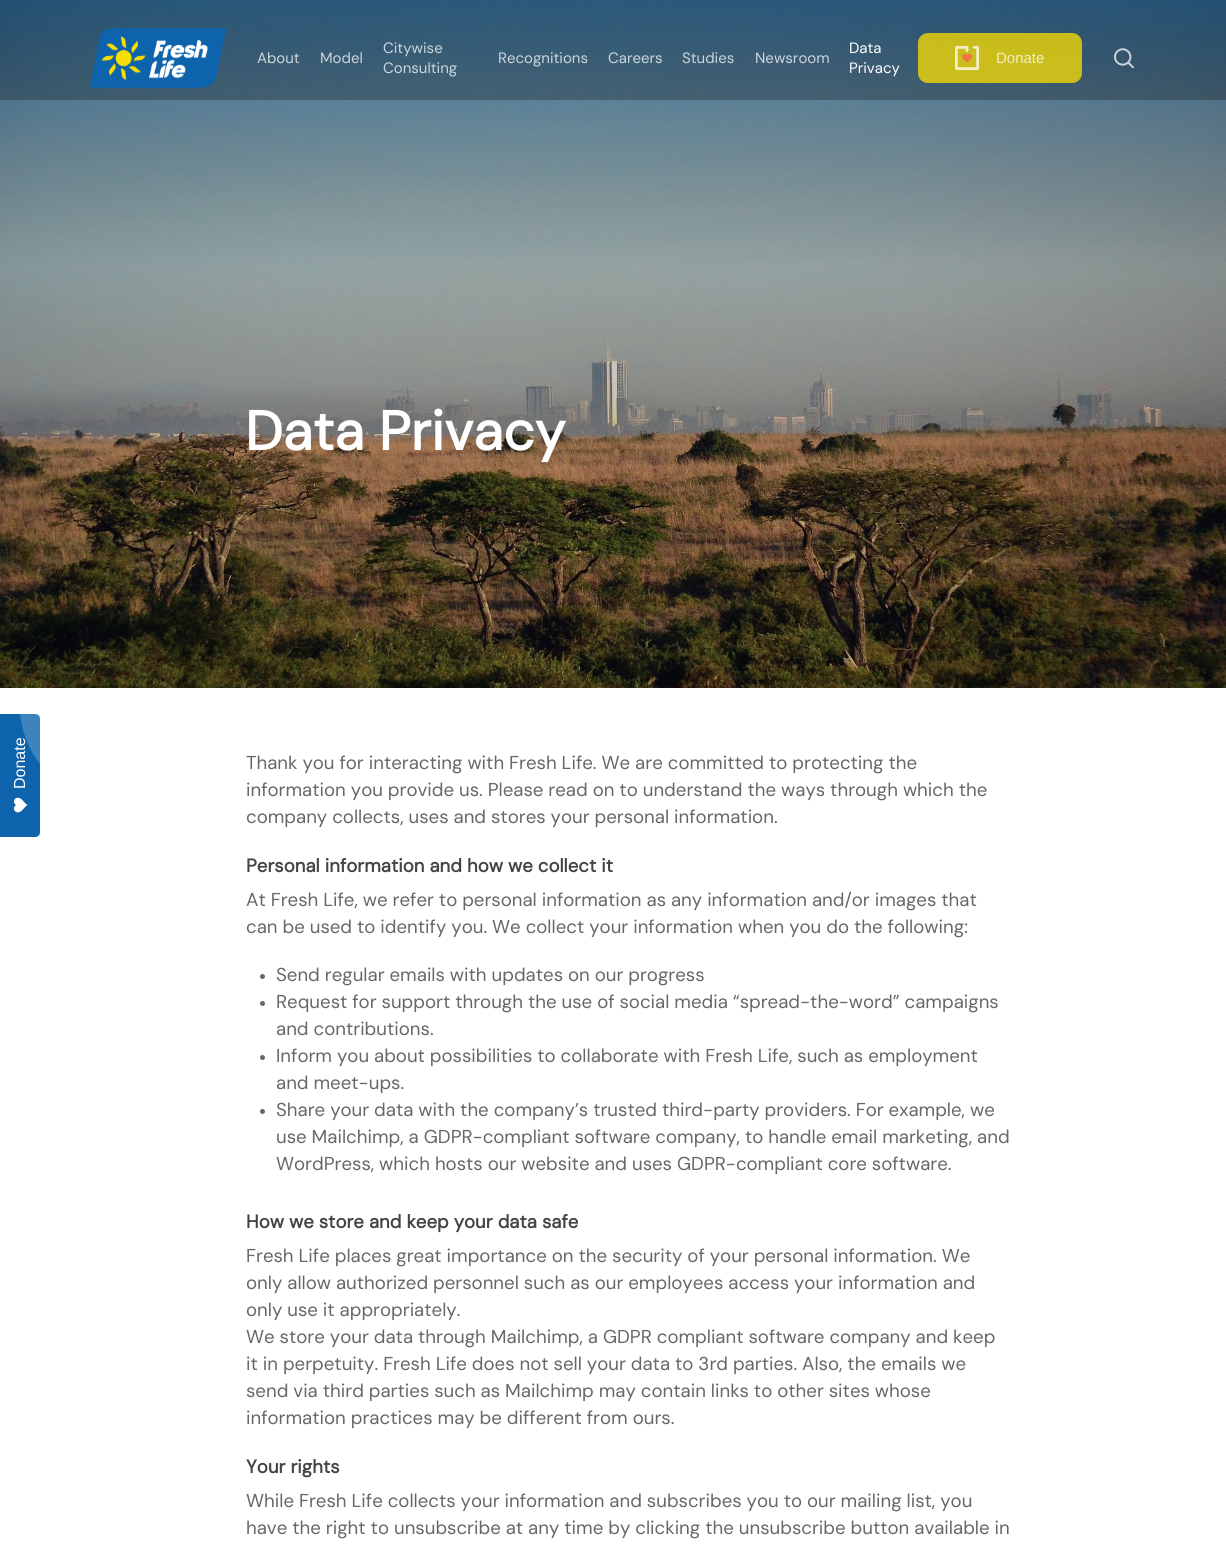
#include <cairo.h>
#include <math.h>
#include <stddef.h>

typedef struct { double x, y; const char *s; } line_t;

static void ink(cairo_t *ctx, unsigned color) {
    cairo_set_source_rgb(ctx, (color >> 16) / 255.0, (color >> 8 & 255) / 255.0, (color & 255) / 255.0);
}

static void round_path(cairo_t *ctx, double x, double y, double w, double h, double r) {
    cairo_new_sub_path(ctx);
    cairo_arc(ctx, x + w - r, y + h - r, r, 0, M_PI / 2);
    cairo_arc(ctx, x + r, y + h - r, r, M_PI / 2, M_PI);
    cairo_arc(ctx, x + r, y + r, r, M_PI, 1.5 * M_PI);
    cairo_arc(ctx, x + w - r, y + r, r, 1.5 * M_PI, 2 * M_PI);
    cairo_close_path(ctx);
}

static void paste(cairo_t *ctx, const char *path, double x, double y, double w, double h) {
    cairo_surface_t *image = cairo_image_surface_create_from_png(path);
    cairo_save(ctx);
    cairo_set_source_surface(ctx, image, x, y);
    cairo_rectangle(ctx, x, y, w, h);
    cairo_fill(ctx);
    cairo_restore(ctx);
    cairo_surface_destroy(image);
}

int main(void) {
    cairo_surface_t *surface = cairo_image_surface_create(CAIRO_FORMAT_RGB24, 1226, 1551);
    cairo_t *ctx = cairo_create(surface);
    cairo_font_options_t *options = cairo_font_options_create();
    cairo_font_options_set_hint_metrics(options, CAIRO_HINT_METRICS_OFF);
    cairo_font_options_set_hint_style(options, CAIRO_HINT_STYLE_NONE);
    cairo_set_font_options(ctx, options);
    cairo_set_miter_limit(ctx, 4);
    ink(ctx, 0xFFFFFF);
    cairo_paint(ctx);
    ink(ctx, 0x0E64AC);
    cairo_new_path(ctx);
    cairo_move_to(ctx, 0, 837);
    cairo_line_to(ctx, 0, 714);
    cairo_line_to(ctx, 35, 714);
    cairo_curve_to(ctx, 38, 714, 40, 716, 40, 719);
    cairo_line_to(ctx, 40, 832);
    cairo_curve_to(ctx, 40, 835, 38, 837, 35, 837);
    cairo_close_path(ctx);
    cairo_fill(ctx);
    cairo_select_font_face(ctx, "Liberation Sans", CAIRO_FONT_SLANT_NORMAL, CAIRO_FONT_WEIGHT_NORMAL);
    cairo_set_font_size(ctx, 16);
    ink(ctx, 0xFFFFFF);
    cairo_save(ctx);
    cairo_translate(ctx, 25, 789);
    cairo_rotate(ctx, -90 * M_PI / 180);
    cairo_move_to(ctx, 0, 0);
    cairo_show_text(ctx, "Donate");
    cairo_restore(ctx);
    cairo_set_source_rgba(ctx, 1, 1, 1, 0.2);
    cairo_new_path(ctx);
    cairo_move_to(ctx, 40, 764);
    cairo_curve_to(ctx, 29, 750, 22, 732, 20, 714);
    cairo_line_to(ctx, 35, 714);
    cairo_curve_to(ctx, 38, 714, 40, 716, 40, 719);
    cairo_close_path(ctx);
    cairo_fill(ctx);
    paste(ctx, "media/1.png", 14, 797, 14, 16);
    paste(ctx, "media/5.png", 0, 0, 1226, 688);
    cairo_set_source_rgba(ctx, 0, 0, 0, 0.25);
    cairo_rectangle(ctx, 0, 0, 1226, 100);
    cairo_fill(ctx);
    paste(ctx, "media/2.png", 90, 28, 136, 60);
    cairo_select_font_face(ctx, "DM Sans", CAIRO_FONT_SLANT_NORMAL, CAIRO_FONT_WEIGHT_NORMAL);
    cairo_set_font_size(ctx, 15);
    ink(ctx, 0xCDD6DC);
    {
        static const line_t items[] = {
            {257, 63, "About"},
            {320, 63, "Model"},
            {383, 53, "Citywise"},
            {383, 73, "Consulting"},
            {498, 63, "Recognitions"},
            {608, 63, "Careers"},
            {682, 63, "Studies"},
            {755, 63, "Newsroom"},
        };
        for (size_t i = 0; i < sizeof items / sizeof *items; i++) {
            cairo_move_to(ctx, items[i].x, items[i].y);
            cairo_show_text(ctx, items[i].s);
        }
    }
    ink(ctx, 0xFFFFFF);
    cairo_move_to(ctx, 849, 53);
    cairo_show_text(ctx, "Data");
    cairo_move_to(ctx, 849, 73);
    cairo_show_text(ctx, "Privacy");
    cairo_set_source_rgba(ctx, 0.98, 0.871, 0.004, 0.75);
    round_path(ctx, 918, 33, 164, 50, 10);
    cairo_fill(ctx);
    paste(ctx, "media/3.png", 955, 46, 24, 24);
    cairo_select_font_face(ctx, "Liberation Sans", CAIRO_FONT_SLANT_NORMAL, CAIRO_FONT_WEIGHT_NORMAL);
    ink(ctx, 0xF2EEC6);
    cairo_move_to(ctx, 996, 63);
    cairo_show_text(ctx, "Donate");
    paste(ctx, "media/4.png", 1114, 48, 20, 21);
    cairo_select_font_face(ctx, "DM Sans", CAIRO_FONT_SLANT_NORMAL, CAIRO_FONT_WEIGHT_BOLD);
    cairo_set_font_size(ctx, 55);
    ink(ctx, 0xFFFFFF);
    cairo_move_to(ctx, 245, 450);
    cairo_show_text(ctx, "Data Privacy");
    cairo_select_font_face(ctx, "DM Sans", CAIRO_FONT_SLANT_NORMAL, CAIRO_FONT_WEIGHT_NORMAL);
    cairo_set_font_size(ctx, 18.65);
    ink(ctx, 0x676767);
    {
        static const line_t items[] = {
            {246, 769, "Thank you for interacting with Fresh Life. We are committed to protecting the"},
            {246, 796, "information you provide us. Please read on to understand the ways through which the"},
            {246, 823, "company collects, uses and stores your personal information."},
        };
        for (size_t i = 0; i < sizeof items / sizeof *items; i++) {
            cairo_move_to(ctx, items[i].x, items[i].y);
            cairo_show_text(ctx, items[i].s);
        }
    }
    cairo_select_font_face(ctx, "DM Sans", CAIRO_FONT_SLANT_NORMAL, CAIRO_FONT_WEIGHT_BOLD);
    ink(ctx, 0x444444);
    cairo_move_to(ctx, 246, 872);
    cairo_show_text(ctx, "Personal information and how we collect it");
    cairo_select_font_face(ctx, "DM Sans", CAIRO_FONT_SLANT_NORMAL, CAIRO_FONT_WEIGHT_NORMAL);
    ink(ctx, 0x676767);
    cairo_move_to(ctx, 246, 906);
    cairo_show_text(ctx, "At Fresh Life, we refer to personal information as any information and/or images that");
    cairo_move_to(ctx, 246, 933);
    cairo_show_text(ctx, "can be used to identify you. We collect your information when you do the following:");
    cairo_new_path(ctx);
    cairo_arc(ctx, 262.5, 976.5, 2.5, 0, 2 * M_PI);
    cairo_fill(ctx);
    cairo_move_to(ctx, 276, 981);
    cairo_show_text(ctx, "Send regular emails with updates on our progress");
    cairo_new_path(ctx);
    cairo_arc(ctx, 262.5, 1003.5, 2.5, 0, 2 * M_PI);
    cairo_fill(ctx);
    cairo_move_to(ctx, 276, 1008);
    cairo_show_text(ctx, "Request for support through the use of social media “spread-the-word” campaigns");
    cairo_move_to(ctx, 276, 1035);
    cairo_show_text(ctx, "and contributions.");
    cairo_new_path(ctx);
    cairo_arc(ctx, 262.5, 1057.5, 2.5, 0, 2 * M_PI);
    cairo_fill(ctx);
    cairo_move_to(ctx, 276, 1062);
    cairo_show_text(ctx, "Inform you about possibilities to collaborate with Fresh Life, such as employment");
    cairo_move_to(ctx, 276, 1089);
    cairo_show_text(ctx, "and meet-ups.");
    cairo_new_path(ctx);
    cairo_arc(ctx, 262.5, 1111.5, 2.5, 0, 2 * M_PI);
    cairo_fill(ctx);
    {
        static const line_t items[] = {
            {276, 1116, "Share your data with the company’s trusted third-party providers. For example, we"},
            {276, 1143, "use Mailchimp, a GDPR-compliant software company, to handle email marketing, and"},
            {276, 1170, "WordPress, which hosts our website and uses GDPR-compliant core software."},
        };
        for (size_t i = 0; i < sizeof items / sizeof *items; i++) {
            cairo_move_to(ctx, items[i].x, items[i].y);
            cairo_show_text(ctx, items[i].s);
        }
    }
    cairo_select_font_face(ctx, "DM Sans", CAIRO_FONT_SLANT_NORMAL, CAIRO_FONT_WEIGHT_BOLD);
    ink(ctx, 0x444444);
    cairo_move_to(ctx, 246, 1228);
    cairo_show_text(ctx, "How we store and keep your data safe");
    cairo_select_font_face(ctx, "DM Sans", CAIRO_FONT_SLANT_NORMAL, CAIRO_FONT_WEIGHT_NORMAL);
    ink(ctx, 0x676767);
    {
        static const line_t items[] = {
            {246, 1262, "Fresh Life places great importance on the security of your personal information. We"},
            {246, 1289, "only allow authorized personnel such as our employees access your information and"},
            {246, 1316, "only use it appropriately."},
            {246, 1343, "We store your data through Mailchimp, a GDPR compliant software company and keep"},
            {246, 1370, "it in perpetuity. Fresh Life does not sell your data to 3rd parties. Also, the emails we"},
            {246, 1397, "send via third parties such as Mailchimp may contain links to other sites whose"},
            {246, 1424, "information practices may be different from ours."},
        };
        for (size_t i = 0; i < sizeof items / sizeof *items; i++) {
            cairo_move_to(ctx, items[i].x, items[i].y);
            cairo_show_text(ctx, items[i].s);
        }
    }
    cairo_select_font_face(ctx, "DM Sans", CAIRO_FONT_SLANT_NORMAL, CAIRO_FONT_WEIGHT_BOLD);
    ink(ctx, 0x444444);
    cairo_move_to(ctx, 246, 1473);
    cairo_show_text(ctx, "Your rights");
    cairo_select_font_face(ctx, "DM Sans", CAIRO_FONT_SLANT_NORMAL, CAIRO_FONT_WEIGHT_NORMAL);
    ink(ctx, 0x676767);
    cairo_move_to(ctx, 246, 1507);
    cairo_show_text(ctx, "While Fresh Life collects your information and subscribes you to our mailing list, you");
    cairo_move_to(ctx, 246, 1534);
    cairo_show_text(ctx, "have the right to unsubscribe at any time by clicking the unsubscribe button available in");
    cairo_surface_write_to_png(surface, "image.png");
    cairo_font_options_destroy(options);
    cairo_destroy(ctx);
    cairo_surface_destroy(surface);
    return 0;
}
